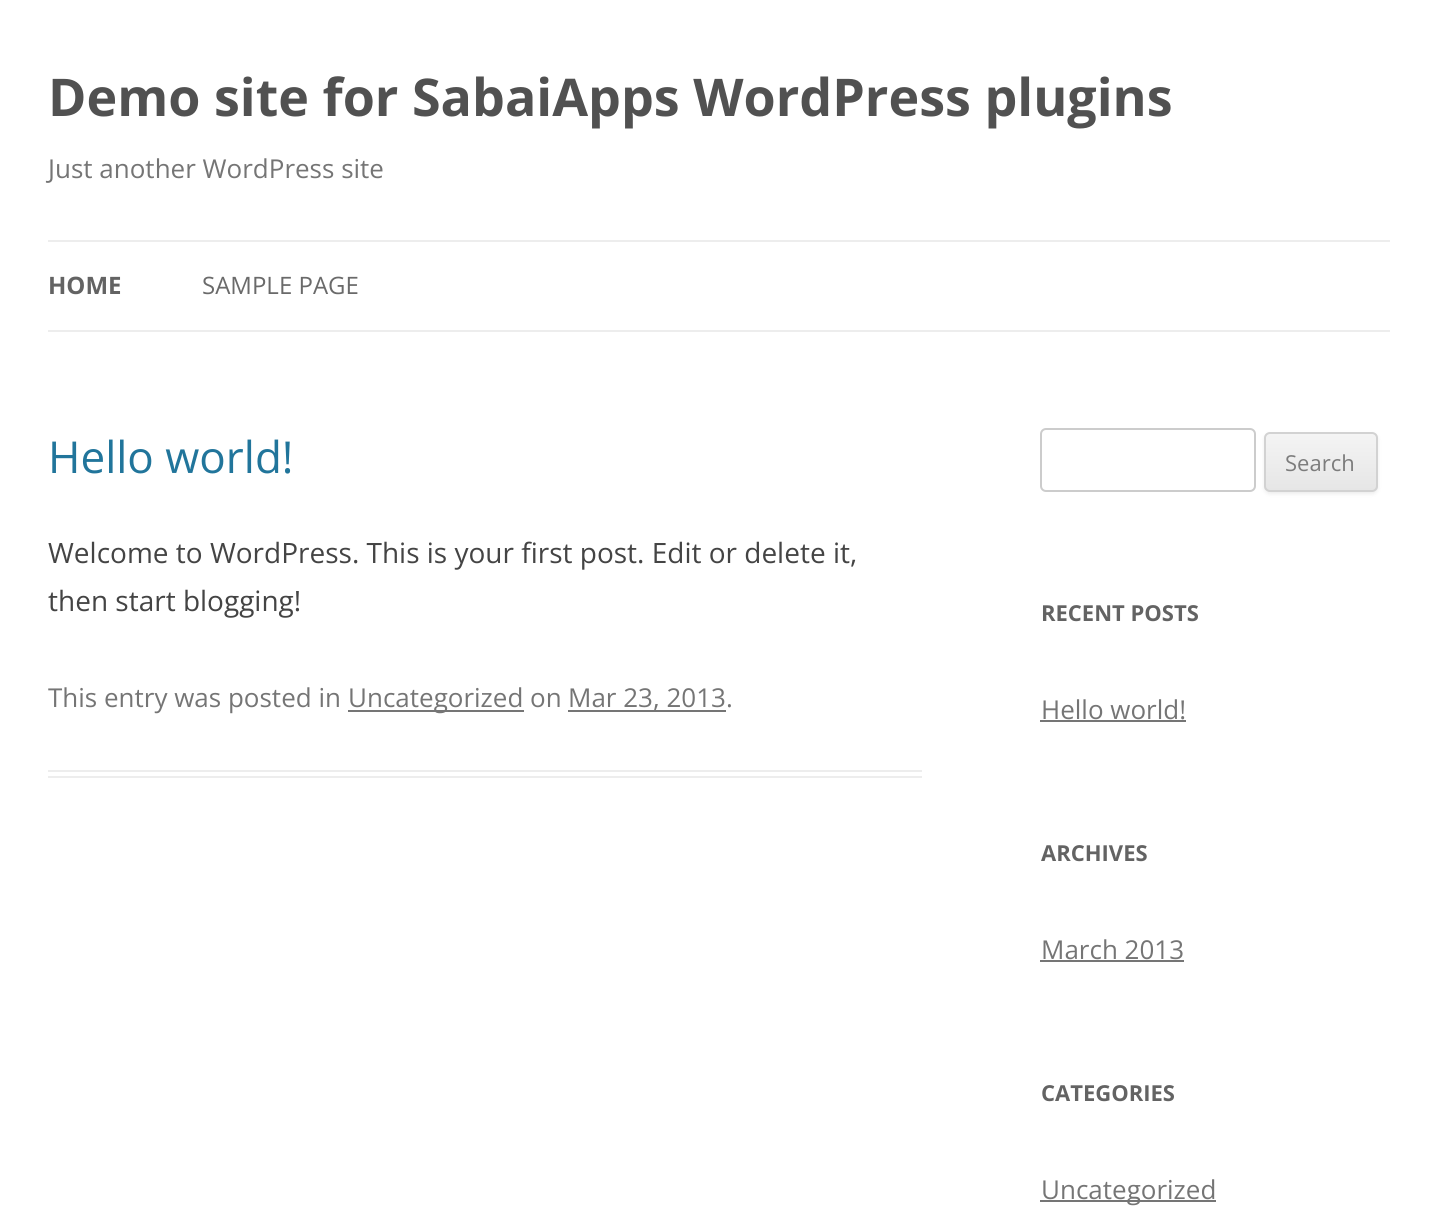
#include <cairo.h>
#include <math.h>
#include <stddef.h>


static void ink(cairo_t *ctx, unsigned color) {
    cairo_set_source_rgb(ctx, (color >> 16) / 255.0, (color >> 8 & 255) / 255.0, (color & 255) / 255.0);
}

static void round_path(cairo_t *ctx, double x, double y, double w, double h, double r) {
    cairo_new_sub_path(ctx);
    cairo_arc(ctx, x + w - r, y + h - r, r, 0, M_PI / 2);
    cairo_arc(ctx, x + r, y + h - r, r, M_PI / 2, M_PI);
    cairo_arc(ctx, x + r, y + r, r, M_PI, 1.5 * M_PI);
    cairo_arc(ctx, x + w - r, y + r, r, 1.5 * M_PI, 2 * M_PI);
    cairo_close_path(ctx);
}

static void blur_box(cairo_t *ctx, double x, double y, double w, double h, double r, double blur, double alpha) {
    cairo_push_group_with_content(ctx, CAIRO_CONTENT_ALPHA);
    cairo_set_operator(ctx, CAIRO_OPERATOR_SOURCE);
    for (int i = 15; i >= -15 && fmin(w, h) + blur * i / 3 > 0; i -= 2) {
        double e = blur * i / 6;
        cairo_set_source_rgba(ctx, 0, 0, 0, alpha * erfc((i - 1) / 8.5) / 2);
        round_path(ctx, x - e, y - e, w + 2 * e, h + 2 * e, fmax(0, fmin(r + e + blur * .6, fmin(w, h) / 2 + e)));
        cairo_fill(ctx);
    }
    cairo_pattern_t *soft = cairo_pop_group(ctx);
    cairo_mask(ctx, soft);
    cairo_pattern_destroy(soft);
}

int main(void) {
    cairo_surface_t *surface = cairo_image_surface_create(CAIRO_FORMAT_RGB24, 1437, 1227);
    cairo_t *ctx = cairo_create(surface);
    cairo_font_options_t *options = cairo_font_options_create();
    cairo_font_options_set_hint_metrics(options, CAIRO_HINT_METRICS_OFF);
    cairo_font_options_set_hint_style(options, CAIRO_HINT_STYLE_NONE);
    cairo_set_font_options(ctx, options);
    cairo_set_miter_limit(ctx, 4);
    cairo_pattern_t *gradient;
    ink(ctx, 0xFFFFFF);
    cairo_paint(ctx);
    cairo_select_font_face(ctx, "Open Sans", CAIRO_FONT_SLANT_NORMAL, CAIRO_FONT_WEIGHT_BOLD);
    cairo_set_font_size(ctx, 52);
    ink(ctx, 0x515151);
    cairo_move_to(ctx, 48, 116);
    cairo_show_text(ctx, "Demo site for SabaiApps WordPress plugins");
    cairo_select_font_face(ctx, "Open Sans", CAIRO_FONT_SLANT_NORMAL, CAIRO_FONT_WEIGHT_NORMAL);
    cairo_set_font_size(ctx, 26);
    ink(ctx, 0x757575);
    cairo_move_to(ctx, 48, 178);
    cairo_show_text(ctx, "Just another WordPress site");
    ink(ctx, 0xEDEDED);
    cairo_rectangle(ctx, 48, 240, 1342, 2);
    cairo_fill(ctx);
    cairo_rectangle(ctx, 48, 330, 1342, 2);
    cairo_fill(ctx);
    cairo_select_font_face(ctx, "Open Sans", CAIRO_FONT_SLANT_NORMAL, CAIRO_FONT_WEIGHT_BOLD);
    cairo_set_font_size(ctx, 24);
    ink(ctx, 0x636363);
    cairo_move_to(ctx, 48, 294);
    cairo_show_text(ctx, "HOME");
    cairo_select_font_face(ctx, "Open Sans", CAIRO_FONT_SLANT_NORMAL, CAIRO_FONT_WEIGHT_NORMAL);
    ink(ctx, 0x6A6A6A);
    cairo_move_to(ctx, 202, 294);
    cairo_show_text(ctx, "SAMPLE PAGE");
    ink(ctx, 0xEDEDED);
    cairo_rectangle(ctx, 48, 770, 874, 2);
    cairo_fill(ctx);
    cairo_rectangle(ctx, 48, 776, 874, 2);
    cairo_fill(ctx);
    cairo_set_font_size(ctx, 44);
    ink(ctx, 0x21759B);
    cairo_move_to(ctx, 48, 473);
    cairo_show_text(ctx, "Hello world!");
    cairo_set_font_size(ctx, 28);
    ink(ctx, 0x444444);
    cairo_move_to(ctx, 48, 563);
    cairo_show_text(ctx, "Welcome to WordPress. This is your first post. Edit or delete it,");
    cairo_move_to(ctx, 48, 611);
    cairo_show_text(ctx, "then start blogging!");
    cairo_set_font_size(ctx, 26);
    ink(ctx, 0x757575);
    cairo_move_to(ctx, 48, 707);
    cairo_show_text(ctx, "This entry was posted in");
    cairo_rectangle(ctx, 348, 710, 176, 2);
    cairo_fill(ctx);
    cairo_move_to(ctx, 348, 707);
    cairo_show_text(ctx, "Uncategorized on");
    cairo_rectangle(ctx, 568, 710, 158, 2);
    cairo_fill(ctx);
    cairo_move_to(ctx, 568, 707);
    cairo_show_text(ctx, "Mar 23, 2013.");
    round_path(ctx, 1041, 429, 214, 62, 5);
    ink(ctx, 0xCCCCCC);
    cairo_stroke(ctx);
    ink(ctx, 0x404040);
    blur_box(ctx, 1264, 434, 114, 60, 6, 2, 0.1);
    cairo_save(ctx);
    round_path(ctx, 1264, 432, 114, 60, 6);
    cairo_clip(ctx);
    gradient = cairo_pattern_create_linear(1321, 434, 1321, 490);
    cairo_pattern_add_color_stop_rgba(gradient, 0, 0.957, 0.957, 0.957, 1);
    cairo_pattern_add_color_stop_rgba(gradient, 1, 0.902, 0.902, 0.902, 1);
    cairo_set_source(ctx, gradient);
    cairo_pattern_destroy(gradient);
    cairo_rectangle(ctx, 1264, 434, 114, 56);
    cairo_fill(ctx);
    cairo_restore(ctx);
    round_path(ctx, 1265, 433, 112, 58, 5);
    ink(ctx, 0xD2D2D2);
    cairo_stroke(ctx);
    cairo_set_font_size(ctx, 22);
    ink(ctx, 0x7C7C7C);
    cairo_move_to(ctx, 1285, 471);
    cairo_show_text(ctx, "Search");
    cairo_select_font_face(ctx, "Open Sans", CAIRO_FONT_SLANT_NORMAL, CAIRO_FONT_WEIGHT_BOLD);
    ink(ctx, 0x636363);
    cairo_move_to(ctx, 1041, 621);
    cairo_show_text(ctx, "RECENT POSTS");
    cairo_select_font_face(ctx, "Open Sans", CAIRO_FONT_SLANT_NORMAL, CAIRO_FONT_WEIGHT_NORMAL);
    cairo_set_font_size(ctx, 26);
    ink(ctx, 0x757575);
    cairo_move_to(ctx, 1041, 719);
    cairo_show_text(ctx, "Hello world!");
    cairo_rectangle(ctx, 1040, 720, 146, 2);
    cairo_fill(ctx);
    cairo_select_font_face(ctx, "Open Sans", CAIRO_FONT_SLANT_NORMAL, CAIRO_FONT_WEIGHT_BOLD);
    cairo_set_font_size(ctx, 22);
    ink(ctx, 0x636363);
    cairo_move_to(ctx, 1041, 861);
    cairo_show_text(ctx, "ARCHIVES");
    cairo_select_font_face(ctx, "Open Sans", CAIRO_FONT_SLANT_NORMAL, CAIRO_FONT_WEIGHT_NORMAL);
    cairo_set_font_size(ctx, 26);
    ink(ctx, 0x757575);
    cairo_move_to(ctx, 1041, 959);
    cairo_show_text(ctx, "March 2013");
    cairo_rectangle(ctx, 1040, 960, 144, 2);
    cairo_fill(ctx);
    cairo_select_font_face(ctx, "Open Sans", CAIRO_FONT_SLANT_NORMAL, CAIRO_FONT_WEIGHT_BOLD);
    cairo_set_font_size(ctx, 22);
    ink(ctx, 0x636363);
    cairo_move_to(ctx, 1041, 1101);
    cairo_show_text(ctx, "CATEGORIES");
    ink(ctx, 0x757575);
    cairo_rectangle(ctx, 1040, 1200, 176, 2);
    cairo_fill(ctx);
    cairo_select_font_face(ctx, "Open Sans", CAIRO_FONT_SLANT_NORMAL, CAIRO_FONT_WEIGHT_NORMAL);
    cairo_set_font_size(ctx, 26);
    cairo_move_to(ctx, 1041, 1199);
    cairo_show_text(ctx, "Uncategorized");
    cairo_surface_write_to_png(surface, "image.png");
    cairo_font_options_destroy(options);
    cairo_destroy(ctx);
    cairo_surface_destroy(surface);
    return 0;
}
